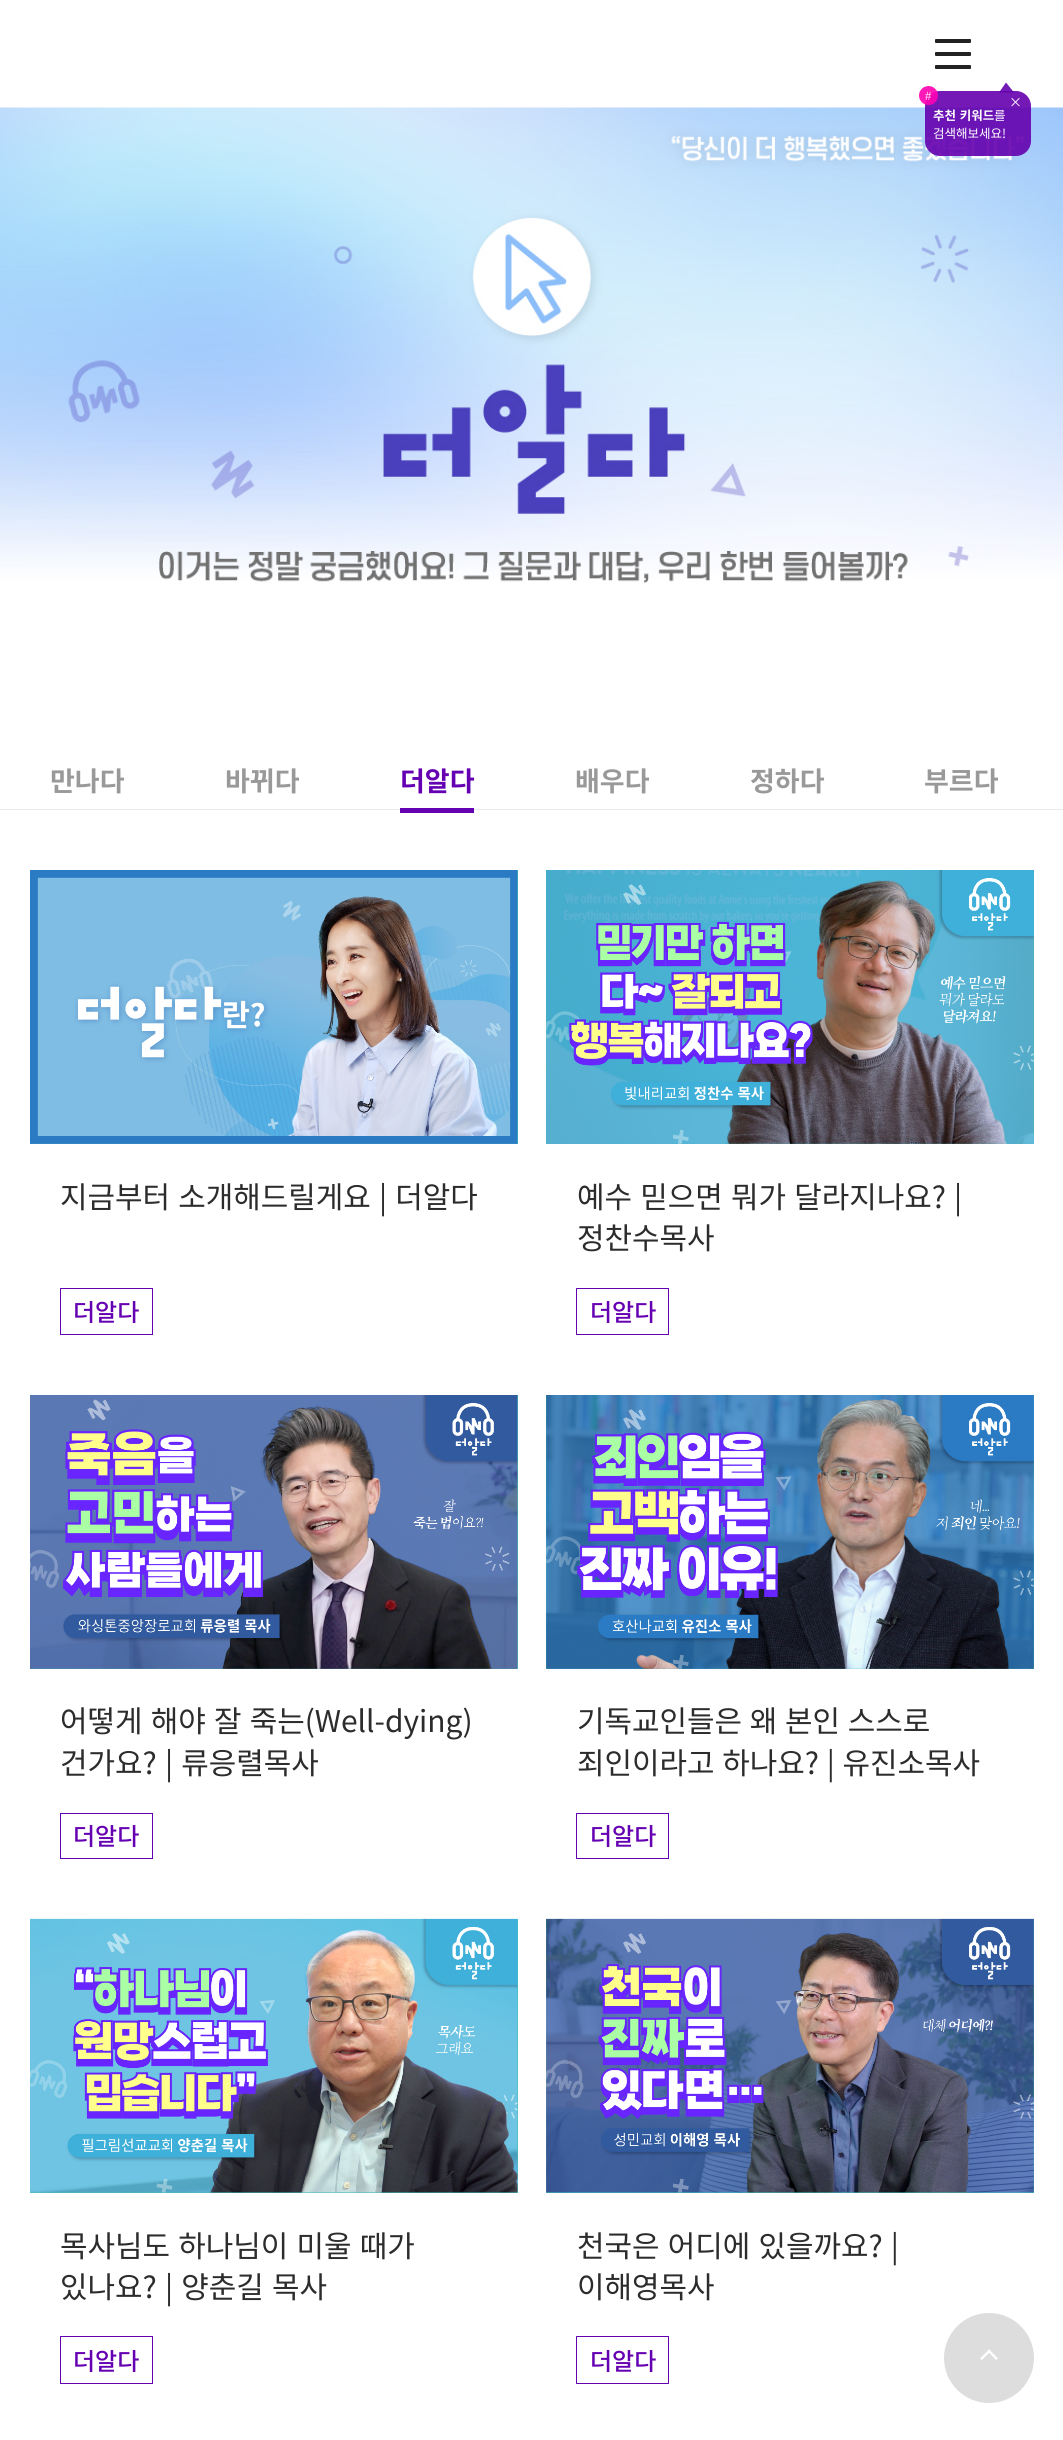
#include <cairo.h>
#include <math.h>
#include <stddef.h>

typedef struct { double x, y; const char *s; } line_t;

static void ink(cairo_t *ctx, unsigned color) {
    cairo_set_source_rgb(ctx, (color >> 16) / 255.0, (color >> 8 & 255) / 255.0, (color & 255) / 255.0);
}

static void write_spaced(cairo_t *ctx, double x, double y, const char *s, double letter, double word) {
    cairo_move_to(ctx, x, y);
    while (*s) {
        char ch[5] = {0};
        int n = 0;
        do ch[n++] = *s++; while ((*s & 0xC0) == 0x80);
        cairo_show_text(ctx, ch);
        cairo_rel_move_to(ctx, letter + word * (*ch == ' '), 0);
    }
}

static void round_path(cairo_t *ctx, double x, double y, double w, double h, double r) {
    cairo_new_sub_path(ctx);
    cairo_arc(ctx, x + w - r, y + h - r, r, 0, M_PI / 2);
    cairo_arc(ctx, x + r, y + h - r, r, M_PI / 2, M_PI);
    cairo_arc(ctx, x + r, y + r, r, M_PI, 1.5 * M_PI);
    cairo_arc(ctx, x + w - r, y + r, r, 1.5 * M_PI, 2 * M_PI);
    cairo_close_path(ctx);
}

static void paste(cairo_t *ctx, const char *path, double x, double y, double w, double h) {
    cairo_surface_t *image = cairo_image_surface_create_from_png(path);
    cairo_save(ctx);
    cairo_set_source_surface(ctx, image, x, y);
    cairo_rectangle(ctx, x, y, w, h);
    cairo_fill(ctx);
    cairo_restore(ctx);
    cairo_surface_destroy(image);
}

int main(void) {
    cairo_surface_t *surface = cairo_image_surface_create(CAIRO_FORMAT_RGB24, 1063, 2440);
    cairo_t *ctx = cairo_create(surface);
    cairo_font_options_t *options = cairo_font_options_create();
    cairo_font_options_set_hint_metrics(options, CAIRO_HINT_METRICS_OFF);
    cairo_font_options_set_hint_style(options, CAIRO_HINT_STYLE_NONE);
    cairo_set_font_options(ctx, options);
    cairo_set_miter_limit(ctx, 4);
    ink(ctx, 0xFFFFFF);
    cairo_paint(ctx);
    ink(ctx, 0x222222);
    round_path(ctx, 935, 39, 36, 4, 1);
    cairo_fill(ctx);
    round_path(ctx, 935, 52, 36, 4, 1);
    cairo_fill(ctx);
    round_path(ctx, 935, 65, 36, 4, 1);
    cairo_fill(ctx);
    ink(ctx, 0x741AB6);
    cairo_new_path(ctx);
    cairo_move_to(ctx, 1014, 92.5);
    cairo_line_to(ctx, 999, 92.5);
    cairo_line_to(ctx, 1006, 82.5);
    cairo_close_path(ctx);
    cairo_fill(ctx);
    paste(ctx, "media/1.png", 0, 107, 1063, 477);
    cairo_set_source_rgba(ctx, 0.396, 0, 0.682, 0.9);
    round_path(ctx, 925, 91, 106, 65, 15);
    cairo_fill(ctx);
    cairo_set_source_rgba(ctx, 1, 0, 0.698, 0.9);
    cairo_arc(ctx, 928.5, 95.5, 9.5, 0, 2 * M_PI);
    cairo_fill(ctx);
    cairo_select_font_face(ctx, "Liberation Serif", CAIRO_FONT_SLANT_NORMAL, CAIRO_FONT_WEIGHT_NORMAL);
    cairo_set_font_size(ctx, 12.5);
    ink(ctx, 0xFFE7F8);
    cairo_move_to(ctx, 925, 100);
    cairo_show_text(ctx, "#");
    cairo_select_font_face(ctx, "Noto Sans KR", CAIRO_FONT_SLANT_NORMAL, CAIRO_FONT_WEIGHT_NORMAL);
    cairo_set_font_size(ctx, 13);
    ink(ctx, 0xFFFFFF);
    cairo_move_to(ctx, 1009, 107);
    cairo_show_text(ctx, "×");
    cairo_select_font_face(ctx, "Noto Sans KR", CAIRO_FONT_SLANT_NORMAL, CAIRO_FONT_WEIGHT_BOLD);
    cairo_set_font_size(ctx, 12.5);
    write_spaced(ctx, 933, 120, "추천 키워드", 0, 1);
    cairo_select_font_face(ctx, "Noto Sans KR", CAIRO_FONT_SLANT_NORMAL, CAIRO_FONT_WEIGHT_NORMAL);
    cairo_move_to(ctx, 994, 120);
    cairo_show_text(ctx, "를");
    cairo_move_to(ctx, 933, 138);
    cairo_show_text(ctx, "검색해보세요!");
    ink(ctx, 0xEAEAEA);
    cairo_rectangle(ctx, 0, 809, 1063, 1);
    cairo_fill(ctx);
    cairo_select_font_face(ctx, "Noto Sans KR", CAIRO_FONT_SLANT_NORMAL, CAIRO_FONT_WEIGHT_BOLD);
    cairo_set_font_size(ctx, 27);
    ink(ctx, 0x999999);
    cairo_move_to(ctx, 50, 791);
    cairo_show_text(ctx, "만나다");
    cairo_move_to(ctx, 225, 791);
    cairo_show_text(ctx, "바뀌다");
    ink(ctx, 0x6500B2);
    cairo_move_to(ctx, 400, 791);
    cairo_show_text(ctx, "더알다");
    cairo_rectangle(ctx, 400, 808, 74, 5);
    cairo_fill(ctx);
    ink(ctx, 0x999999);
    {
        static const line_t items[] = {
            {575, 791, "배우다"},
            {750, 791, "정하다"},
            {924, 791, "부르다"},
        };
        for (size_t i = 0; i < sizeof items / sizeof *items; i++) {
            cairo_move_to(ctx, items[i].x, items[i].y);
            cairo_show_text(ctx, items[i].s);
        }
    }
    ink(ctx, 0x46BEBE);
    cairo_rectangle(ctx, 30, 870, 488, 274);
    cairo_fill(ctx);
    paste(ctx, "media/2.png", 30, 870, 488, 274);
    paste(ctx, "media/3.png", 30, 870, 488, 274);
    cairo_select_font_face(ctx, "Noto Sans KR", CAIRO_FONT_SLANT_NORMAL, CAIRO_FONT_WEIGHT_NORMAL);
    cairo_set_font_size(ctx, 29.9);
    ink(ctx, 0x2C2C2C);
    write_spaced(ctx, 60, 1208, "지금부터 소개해드릴게요 | 더알다", 0, 1.5);
    cairo_rectangle(ctx, 60.5, 1288.5, 92, 46);
    ink(ctx, 0x6500B2);
    cairo_set_line_width(ctx, 1);
    cairo_stroke(ctx);
    cairo_select_font_face(ctx, "Noto Sans KR Medium", CAIRO_FONT_SLANT_NORMAL, CAIRO_FONT_WEIGHT_NORMAL);
    cairo_set_font_size(ctx, 24);
    cairo_move_to(ctx, 73, 1321);
    cairo_show_text(ctx, "더알다");
    ink(ctx, 0x46BEBE);
    cairo_rectangle(ctx, 546, 870, 488, 274);
    cairo_fill(ctx);
    paste(ctx, "media/4.png", 546, 870, 488, 274);
    paste(ctx, "media/5.png", 546, 870, 488, 274);
    cairo_select_font_face(ctx, "Noto Sans KR", CAIRO_FONT_SLANT_NORMAL, CAIRO_FONT_WEIGHT_NORMAL);
    cairo_set_font_size(ctx, 29.9);
    ink(ctx, 0x2C2C2C);
    write_spaced(ctx, 577, 1208, "예수 믿으면 뭐가 달라지나요? |", 0, 1.5);
    cairo_move_to(ctx, 577, 1249);
    cairo_show_text(ctx, "정찬수목사");
    cairo_rectangle(ctx, 576.5, 1288.5, 92, 46);
    ink(ctx, 0x6500B2);
    cairo_stroke(ctx);
    cairo_select_font_face(ctx, "Noto Sans KR Medium", CAIRO_FONT_SLANT_NORMAL, CAIRO_FONT_WEIGHT_NORMAL);
    cairo_set_font_size(ctx, 24);
    cairo_move_to(ctx, 590, 1321);
    cairo_show_text(ctx, "더알다");
    ink(ctx, 0x46BEBE);
    cairo_rectangle(ctx, 30, 1395, 488, 274);
    cairo_fill(ctx);
    paste(ctx, "media/6.png", 30, 1395, 488, 274);
    paste(ctx, "media/7.png", 30, 1395, 488, 274);
    cairo_select_font_face(ctx, "Noto Sans KR", CAIRO_FONT_SLANT_NORMAL, CAIRO_FONT_WEIGHT_NORMAL);
    cairo_set_font_size(ctx, 29.9);
    ink(ctx, 0x2C2C2C);
    write_spaced(ctx, 60, 1732, "어떻게 해야 잘 죽는(Well-dying)", 0, 1.5);
    write_spaced(ctx, 60, 1774, "건가요? | 류응렬목사", 0, 1.5);
    cairo_rectangle(ctx, 60.5, 1813.5, 92, 45);
    ink(ctx, 0x6500B2);
    cairo_stroke(ctx);
    cairo_select_font_face(ctx, "Noto Sans KR Medium", CAIRO_FONT_SLANT_NORMAL, CAIRO_FONT_WEIGHT_NORMAL);
    cairo_set_font_size(ctx, 24);
    cairo_move_to(ctx, 73, 1845);
    cairo_show_text(ctx, "더알다");
    ink(ctx, 0x46BEBE);
    cairo_rectangle(ctx, 546, 1395, 488, 274);
    cairo_fill(ctx);
    paste(ctx, "media/8.png", 546, 1395, 488, 274);
    paste(ctx, "media/9.png", 546, 1395, 488, 274);
    cairo_select_font_face(ctx, "Noto Sans KR", CAIRO_FONT_SLANT_NORMAL, CAIRO_FONT_WEIGHT_NORMAL);
    cairo_set_font_size(ctx, 29.9);
    ink(ctx, 0x2C2C2C);
    write_spaced(ctx, 577, 1732, "기독교인들은 왜 본인 스스로", 0, 1);
    write_spaced(ctx, 577, 1774, "죄인이라고 하나요? | 유진소목사", 0, 1);
    cairo_rectangle(ctx, 576.5, 1813.5, 92, 45);
    ink(ctx, 0x6500B2);
    cairo_stroke(ctx);
    cairo_select_font_face(ctx, "Noto Sans KR Medium", CAIRO_FONT_SLANT_NORMAL, CAIRO_FONT_WEIGHT_NORMAL);
    cairo_set_font_size(ctx, 24);
    cairo_move_to(ctx, 590, 1845);
    cairo_show_text(ctx, "더알다");
    ink(ctx, 0x46BEBE);
    cairo_rectangle(ctx, 30, 1919, 488, 274);
    cairo_fill(ctx);
    paste(ctx, "media/10.png", 30, 1918, 488, 275);
    paste(ctx, "media/11.png", 30, 1918, 488, 275);
    cairo_select_font_face(ctx, "Noto Sans KR", CAIRO_FONT_SLANT_NORMAL, CAIRO_FONT_WEIGHT_NORMAL);
    cairo_set_font_size(ctx, 29.9);
    ink(ctx, 0x2C2C2C);
    write_spaced(ctx, 60, 2257, "목사님도 하나님이 미울 때가", 0, 1.5);
    write_spaced(ctx, 60, 2298, "있나요? | 양춘길 목사", 0, 1.5);
    cairo_rectangle(ctx, 60.5, 2336.5, 92, 47);
    ink(ctx, 0x6500B2);
    cairo_stroke(ctx);
    cairo_select_font_face(ctx, "Noto Sans KR Medium", CAIRO_FONT_SLANT_NORMAL, CAIRO_FONT_WEIGHT_NORMAL);
    cairo_set_font_size(ctx, 24);
    cairo_move_to(ctx, 73, 2370);
    cairo_show_text(ctx, "더알다");
    ink(ctx, 0x46BEBE);
    cairo_rectangle(ctx, 546, 1919, 488, 274);
    cairo_fill(ctx);
    paste(ctx, "media/12.png", 546, 1918, 488, 275);
    paste(ctx, "media/13.png", 546, 1918, 488, 275);
    cairo_select_font_face(ctx, "Noto Sans KR", CAIRO_FONT_SLANT_NORMAL, CAIRO_FONT_WEIGHT_NORMAL);
    cairo_set_font_size(ctx, 29.9);
    ink(ctx, 0x2C2C2C);
    write_spaced(ctx, 577, 2257, "천국은 어디에 있을까요? |", 0, 1.5);
    cairo_move_to(ctx, 577, 2298);
    cairo_show_text(ctx, "이해영목사");
    cairo_rectangle(ctx, 576.5, 2336.5, 92, 47);
    ink(ctx, 0x6500B2);
    cairo_stroke(ctx);
    cairo_select_font_face(ctx, "Noto Sans KR Medium", CAIRO_FONT_SLANT_NORMAL, CAIRO_FONT_WEIGHT_NORMAL);
    cairo_set_font_size(ctx, 24);
    cairo_move_to(ctx, 590, 2370);
    cairo_show_text(ctx, "더알다");
    ink(ctx, 0xDDDDDD);
    cairo_new_path(ctx);
    cairo_arc(ctx, 989, 2358, 45, 0, 2 * M_PI);
    cairo_fill(ctx);
    ink(ctx, 0xFFFFFF);
    cairo_new_path(ctx);
    cairo_move_to(ctx, 980, 2358.5);
    cairo_line_to(ctx, 989, 2349.5);
    cairo_line_to(ctx, 991, 2351);
    cairo_line_to(ctx, 982, 2360);
    cairo_close_path(ctx);
    cairo_fill(ctx);
    cairo_new_path(ctx);
    cairo_move_to(ctx, 987.5, 2351);
    cairo_line_to(ctx, 989, 2349.5);
    cairo_line_to(ctx, 998, 2358.5);
    cairo_line_to(ctx, 996, 2360);
    cairo_close_path(ctx);
    cairo_fill(ctx);
    cairo_surface_write_to_png(surface, "image.png");
    cairo_font_options_destroy(options);
    cairo_destroy(ctx);
    cairo_surface_destroy(surface);
    return 0;
}
